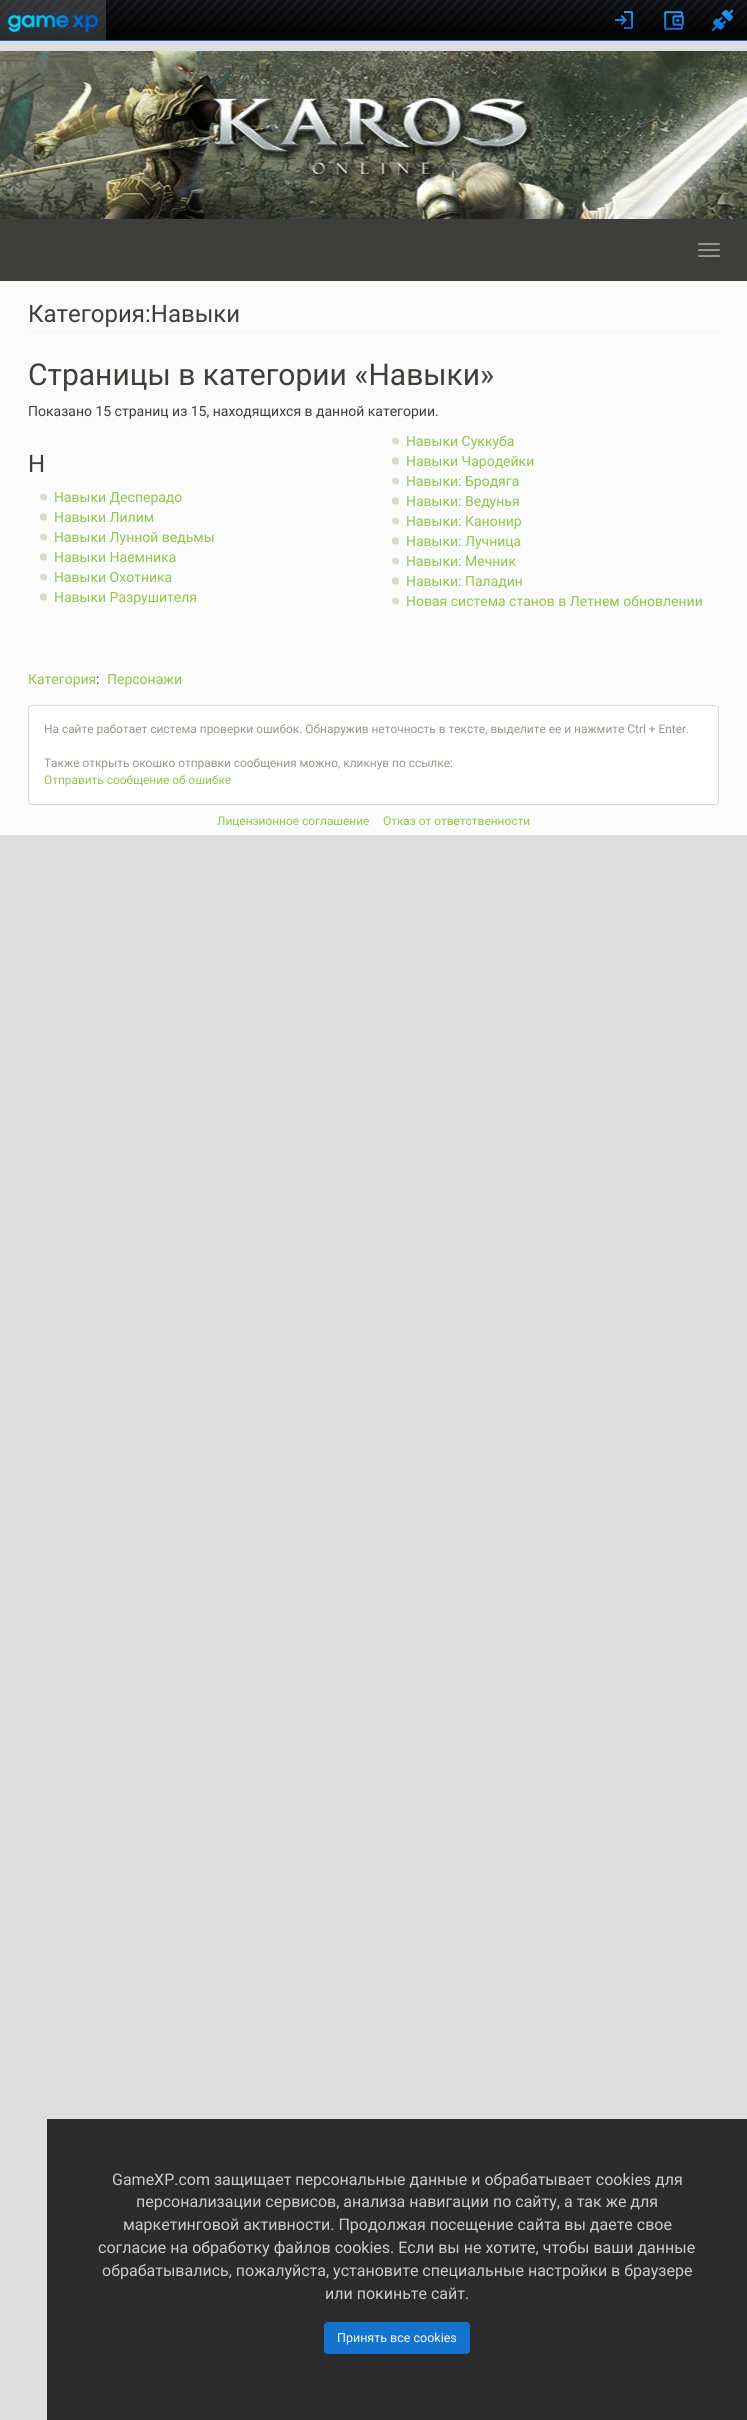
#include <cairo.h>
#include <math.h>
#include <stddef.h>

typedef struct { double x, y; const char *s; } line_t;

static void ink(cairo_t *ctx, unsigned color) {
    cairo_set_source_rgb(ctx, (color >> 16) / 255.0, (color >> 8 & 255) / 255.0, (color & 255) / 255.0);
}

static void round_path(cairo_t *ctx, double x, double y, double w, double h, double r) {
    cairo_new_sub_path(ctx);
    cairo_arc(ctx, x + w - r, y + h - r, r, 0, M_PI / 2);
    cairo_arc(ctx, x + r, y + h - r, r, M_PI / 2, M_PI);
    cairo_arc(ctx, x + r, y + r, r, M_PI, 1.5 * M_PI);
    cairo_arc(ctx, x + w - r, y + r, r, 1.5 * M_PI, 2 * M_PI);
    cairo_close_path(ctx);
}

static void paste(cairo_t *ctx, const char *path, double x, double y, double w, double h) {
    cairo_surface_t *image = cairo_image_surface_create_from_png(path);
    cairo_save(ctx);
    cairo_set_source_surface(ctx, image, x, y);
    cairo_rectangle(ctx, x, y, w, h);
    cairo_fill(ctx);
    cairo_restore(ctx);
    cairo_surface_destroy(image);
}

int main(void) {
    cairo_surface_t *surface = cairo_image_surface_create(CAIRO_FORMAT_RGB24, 747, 2420);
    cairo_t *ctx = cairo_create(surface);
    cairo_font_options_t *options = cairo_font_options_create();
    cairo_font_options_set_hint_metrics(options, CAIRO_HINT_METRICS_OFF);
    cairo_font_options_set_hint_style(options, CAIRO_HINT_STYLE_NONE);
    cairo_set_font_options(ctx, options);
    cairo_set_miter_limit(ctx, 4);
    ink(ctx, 0xDDDDDD);
    cairo_paint(ctx);
    paste(ctx, "media/1.png", 0, 0, 747, 40);
    cairo_set_source_rgba(ctx, 0.424, 0.424, 0.424, 0.4);
    cairo_rectangle(ctx, 0, 0, 106, 40);
    cairo_fill(ctx);
    paste(ctx, "media/2.png", 3, 9, 98, 27);
    paste(ctx, "media/3.png", 615, 11, 18, 18);
    paste(ctx, "media/4.png", 664, 11, 20, 19);
    paste(ctx, "media/5.png", 711, 9, 23, 23);
    ink(ctx, 0x0C69D4);
    cairo_rectangle(ctx, 0, 40, 747, 1);
    cairo_fill(ctx);
    paste(ctx, "media/6.png", 0, 51, 747, 168);
    ink(ctx, 0x3E3F3A);
    cairo_rectangle(ctx, 0, 219, 747, 62);
    cairo_fill(ctx);
    ink(ctx, 0x98978B);
    round_path(ctx, 698, 243, 22, 2, 1);
    cairo_fill(ctx);
    round_path(ctx, 698, 249, 22, 2, 1);
    cairo_fill(ctx);
    round_path(ctx, 698, 255, 22, 2, 1);
    cairo_fill(ctx);
    ink(ctx, 0xFCFBFB);
    cairo_rectangle(ctx, 0, 281, 747, 554);
    cairo_fill(ctx);
    ink(ctx, 0xF8F5F0);
    cairo_rectangle(ctx, 28, 332, 691, 1);
    cairo_fill(ctx);
    cairo_select_font_face(ctx, "Roboto", CAIRO_FONT_SLANT_NORMAL, CAIRO_FONT_WEIGHT_NORMAL);
    cairo_set_font_size(ctx, 24);
    ink(ctx, 0x3E3F3A);
    cairo_move_to(ctx, 28, 322);
    cairo_show_text(ctx, "Категория:Навыки");
    cairo_set_font_size(ctx, 30);
    cairo_move_to(ctx, 28, 385);
    cairo_show_text(ctx, "Страницы в категории «Навыки»");
    cairo_set_font_size(ctx, 14);
    cairo_move_to(ctx, 28, 416);
    cairo_show_text(ctx, "Показано 15 страниц из 15, находящихся в данной категории.");
    cairo_set_font_size(ctx, 24);
    cairo_move_to(ctx, 28, 472);
    cairo_show_text(ctx, "Н");
    paste(ctx, "media/7.png", 392, 437, 7, 8);
    cairo_set_font_size(ctx, 14);
    ink(ctx, 0x93C54B);
    cairo_move_to(ctx, 406, 446);
    cairo_show_text(ctx, "Навыки Суккуба");
    paste(ctx, "media/7.png", 392, 457, 7, 8);
    cairo_move_to(ctx, 406, 466);
    cairo_show_text(ctx, "Навыки Чародейки");
    paste(ctx, "media/7.png", 392, 477, 7, 8);
    cairo_move_to(ctx, 406, 486);
    cairo_show_text(ctx, "Навыки: Бродяга");
    paste(ctx, "media/7.png", 40, 493, 7, 8);
    cairo_move_to(ctx, 54, 502);
    cairo_show_text(ctx, "Навыки Десперадо");
    paste(ctx, "media/7.png", 392, 497, 7, 8);
    cairo_move_to(ctx, 406, 506);
    cairo_show_text(ctx, "Навыки: Ведунья");
    paste(ctx, "media/7.png", 40, 513, 7, 8);
    cairo_move_to(ctx, 54, 522);
    cairo_show_text(ctx, "Навыки Лилим");
    paste(ctx, "media/7.png", 392, 517, 7, 8);
    cairo_move_to(ctx, 406, 526);
    cairo_show_text(ctx, "Навыки: Канонир");
    paste(ctx, "media/7.png", 40, 533, 7, 8);
    cairo_move_to(ctx, 54, 542);
    cairo_show_text(ctx, "Навыки Лунной ведьмы");
    paste(ctx, "media/7.png", 392, 537, 7, 8);
    cairo_move_to(ctx, 406, 546);
    cairo_show_text(ctx, "Навыки: Лучница");
    paste(ctx, "media/7.png", 40, 553, 7, 8);
    cairo_move_to(ctx, 54, 562);
    cairo_show_text(ctx, "Навыки Наемника");
    paste(ctx, "media/7.png", 392, 557, 7, 8);
    cairo_move_to(ctx, 406, 566);
    cairo_show_text(ctx, "Навыки: Мечник");
    paste(ctx, "media/7.png", 40, 573, 7, 8);
    cairo_move_to(ctx, 54, 582);
    cairo_show_text(ctx, "Навыки Охотника");
    paste(ctx, "media/7.png", 392, 577, 7, 8);
    cairo_move_to(ctx, 406, 586);
    cairo_show_text(ctx, "Навыки: Паладин");
    paste(ctx, "media/7.png", 40, 593, 7, 8);
    cairo_move_to(ctx, 54, 602);
    cairo_show_text(ctx, "Навыки Разрушителя");
    paste(ctx, "media/7.png", 392, 597, 7, 8);
    cairo_move_to(ctx, 406, 606);
    cairo_show_text(ctx, "Новая система станов в Летнем обновлении");
    cairo_move_to(ctx, 28, 684);
    cairo_show_text(ctx, "Категория");
    ink(ctx, 0x3E3F3A);
    cairo_move_to(ctx, 96, 684);
    cairo_show_text(ctx, ":");
    ink(ctx, 0x93C54B);
    cairo_move_to(ctx, 107, 684);
    cairo_show_text(ctx, "Персонажи");
    ink(ctx, 0xFFFFFF);
    round_path(ctx, 28.5, 705.5, 690, 99, 3.5);
    cairo_fill_preserve(ctx);
    ink(ctx, 0xDFD7CA);
    cairo_set_line_width(ctx, 1);
    cairo_stroke(ctx);
    cairo_set_font_size(ctx, 11.9);
    ink(ctx, 0x98978B);
    cairo_move_to(ctx, 44, 733);
    cairo_show_text(ctx, "На сайте работает система проверки ошибок. Обнаружив неточность в тексте, выделите ее и нажмите Ctrl + Enter.");
    cairo_move_to(ctx, 44, 767);
    cairo_show_text(ctx, "Также открыть окошко отправки сообщения можно, кликнув по ссылке:");
    ink(ctx, 0x93C54B);
    {
        static const line_t items[] = {
            {44, 784, "Отправить сообщение об ошибке"},
            {217, 825, "Лицензионное соглашение"},
            {383, 825, "Отказ от ответственности"},
        };
        for (size_t i = 0; i < sizeof items / sizeof *items; i++) {
            cairo_move_to(ctx, items[i].x, items[i].y);
            cairo_show_text(ctx, items[i].s);
        }
    }
    ink(ctx, 0x2C2C2C);
    cairo_rectangle(ctx, 47, 2119, 700, 301);
    cairo_fill(ctx);
    cairo_set_font_size(ctx, 16);
    ink(ctx, 0xCCCCCC);
    {
        static const line_t items[] = {
            {112, 2185, "GameXP.com защищает персональные данные и обрабатывает cookies для"},
            {136, 2207, "персонализации сервисов, анализа навигации по сайту, а так же для"},
            {123, 2230, "маркетинговой активности. Продолжая посещение сайта вы даете свое"},
            {98, 2253, "согласие на обработку файлов cookies. Если вы не хотите, чтобы ваши данные"},
            {102, 2276, "обрабатывались, пожалуйста, установите специальные настройки в браузере"},
            {325, 2299, "или покиньте сайт."},
        };
        for (size_t i = 0; i < sizeof items / sizeof *items; i++) {
            cairo_move_to(ctx, items[i].x, items[i].y);
            cairo_show_text(ctx, items[i].s);
        }
    }
    ink(ctx, 0x1473CE);
    round_path(ctx, 324, 2322, 146, 32, 4);
    cairo_fill(ctx);
    cairo_set_font_size(ctx, 12.5);
    ink(ctx, 0xFFFFFF);
    cairo_move_to(ctx, 337, 2342);
    cairo_show_text(ctx, "Принять все cookies");
    cairo_surface_write_to_png(surface, "image.png");
    cairo_font_options_destroy(options);
    cairo_destroy(ctx);
    cairo_surface_destroy(surface);
    return 0;
}
